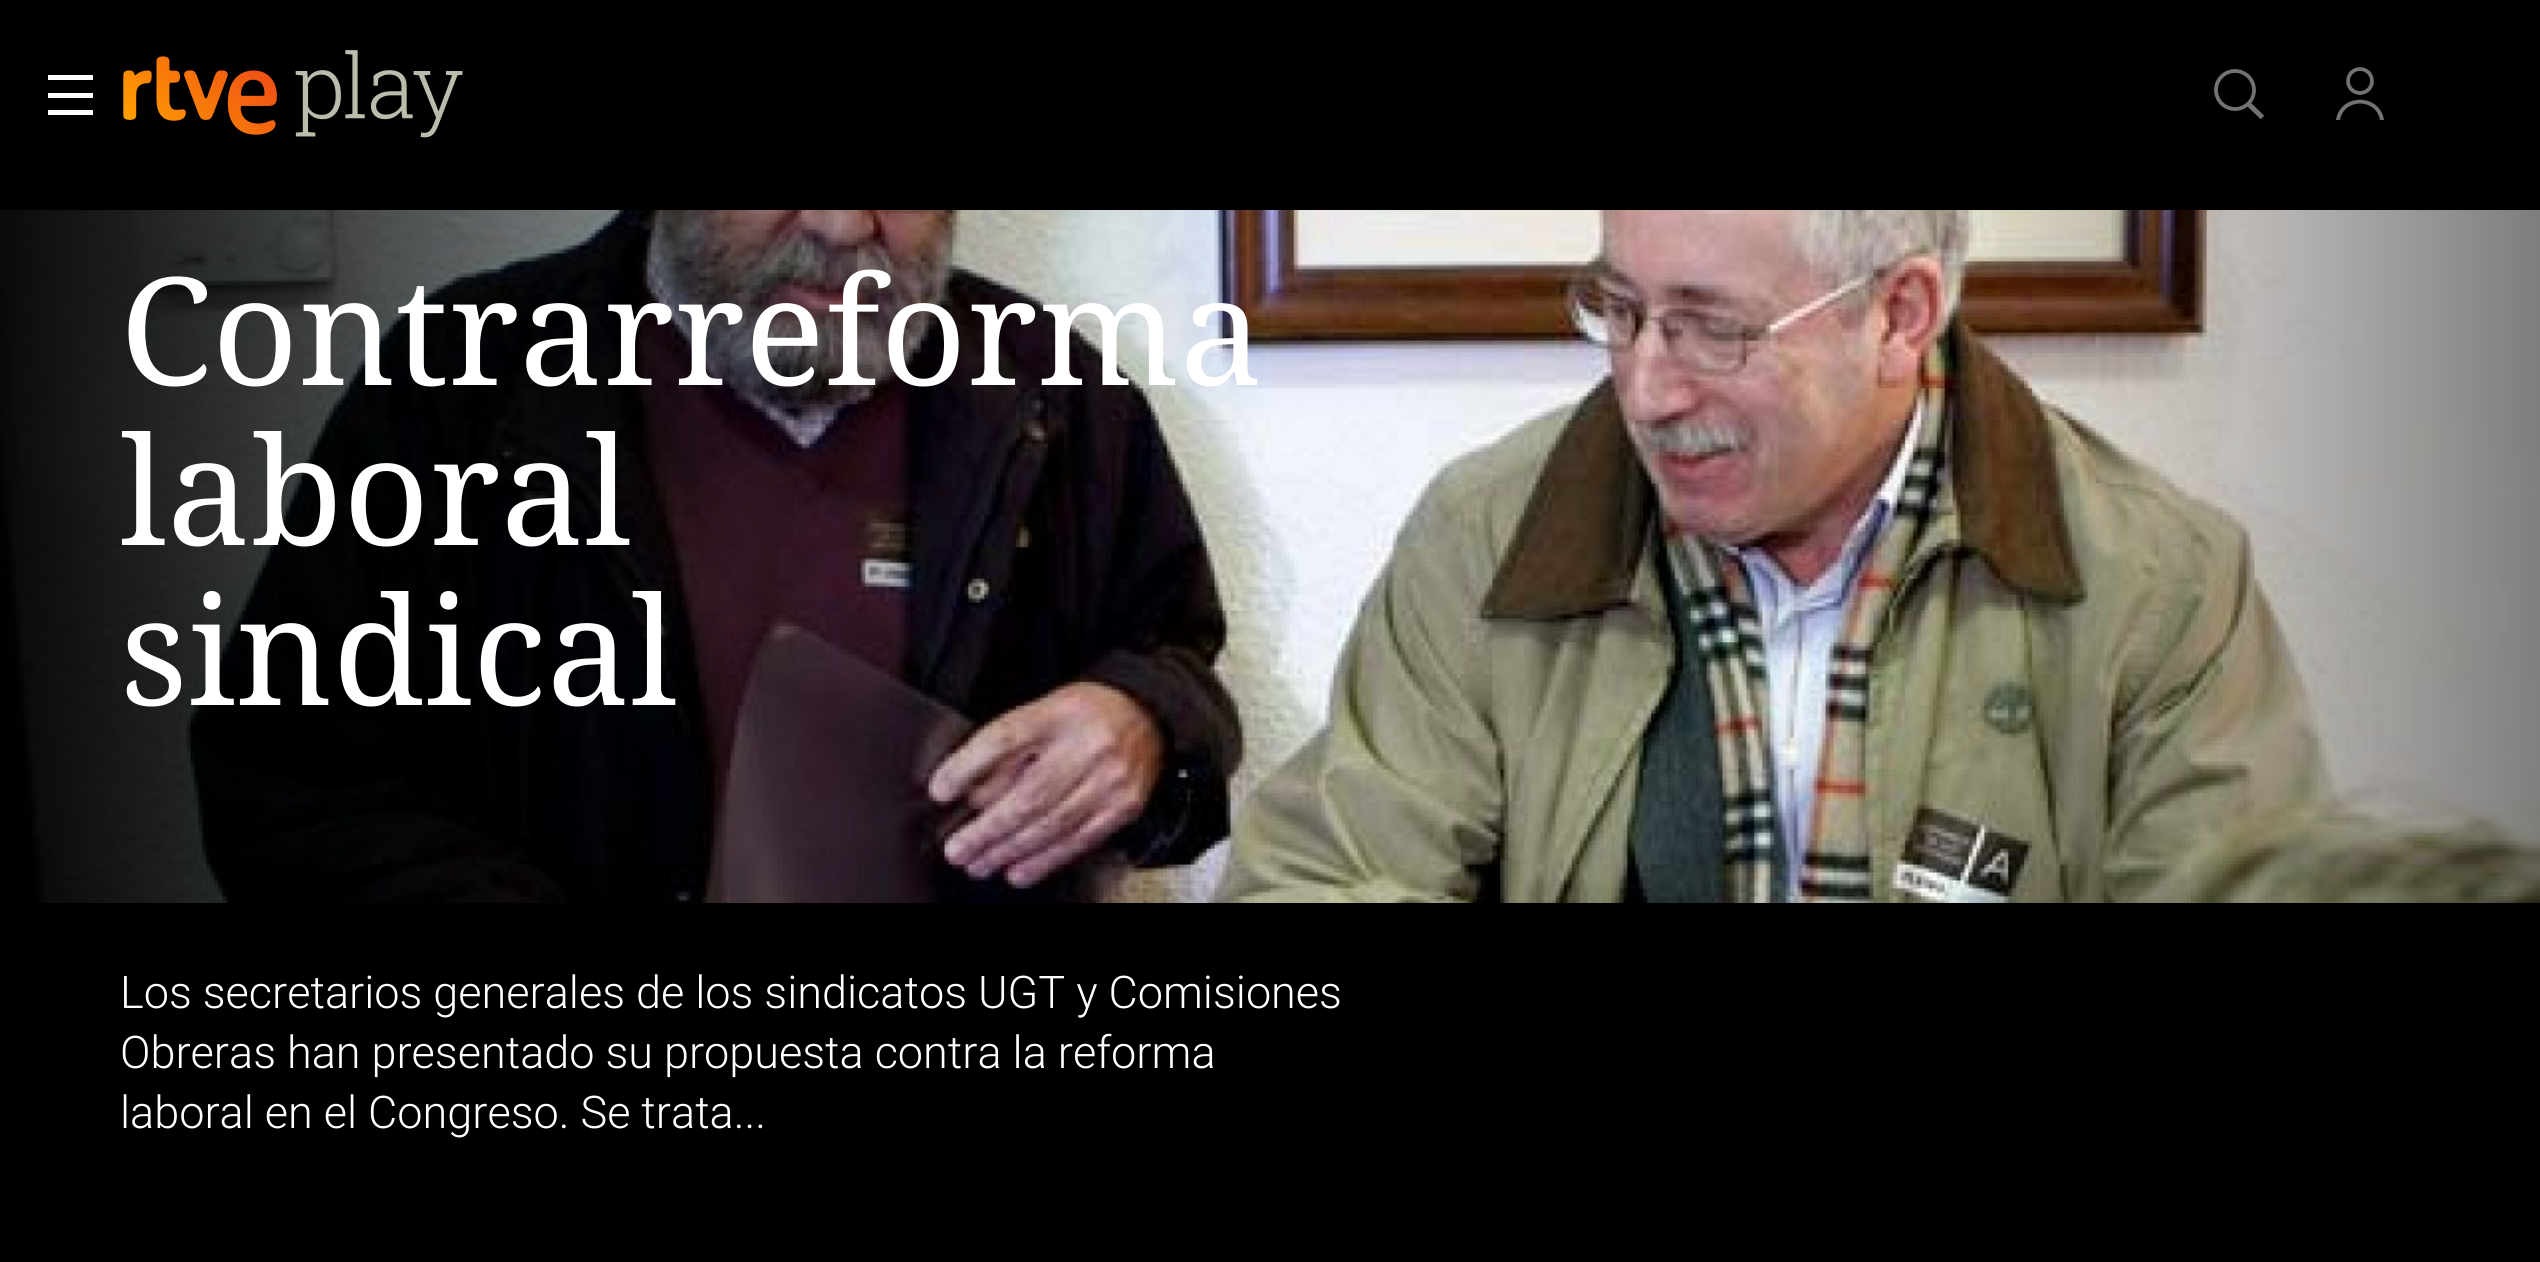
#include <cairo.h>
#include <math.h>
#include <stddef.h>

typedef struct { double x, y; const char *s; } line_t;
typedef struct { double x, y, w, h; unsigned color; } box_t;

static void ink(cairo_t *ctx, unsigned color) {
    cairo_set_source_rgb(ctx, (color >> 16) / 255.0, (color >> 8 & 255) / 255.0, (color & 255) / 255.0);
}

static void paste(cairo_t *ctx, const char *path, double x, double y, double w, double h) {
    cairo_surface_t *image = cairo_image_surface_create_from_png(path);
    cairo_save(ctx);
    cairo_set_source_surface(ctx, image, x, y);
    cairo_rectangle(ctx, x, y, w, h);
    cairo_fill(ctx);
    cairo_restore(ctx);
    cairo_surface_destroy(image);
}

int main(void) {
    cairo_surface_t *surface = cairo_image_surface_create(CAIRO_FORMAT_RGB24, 2540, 1262);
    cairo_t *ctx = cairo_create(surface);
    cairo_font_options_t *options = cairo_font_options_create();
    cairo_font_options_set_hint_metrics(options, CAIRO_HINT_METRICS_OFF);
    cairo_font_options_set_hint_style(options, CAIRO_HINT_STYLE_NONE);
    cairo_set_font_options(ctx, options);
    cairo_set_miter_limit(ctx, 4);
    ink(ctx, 0x000000);
    cairo_paint(ctx);
    {
        static const box_t items[] = {
            {48, 75, 45, 5, 0xFFFFFF},
            {48, 93, 45, 5, 0xFFFFFF},
            {48, 110, 45, 5, 0xFFFFFF},
        };
        for (size_t i = 0; i < sizeof items / sizeof *items; i++) {
            ink(ctx, items[i].color);
            cairo_rectangle(ctx, items[i].x, items[i].y, items[i].w, items[i].h);
            cairo_fill(ctx);
        }
    }
    paste(ctx, "media/1.png", 123, 56, 154, 79);
    paste(ctx, "media/2.png", 295, 50, 168, 88);
    cairo_arc(ctx, 2235, 90, 19, 0, 2 * M_PI);
    ink(ctx, 0x727272);
    cairo_set_line_width(ctx, 3.8);
    cairo_stroke(ctx);
    cairo_new_path(ctx);
    cairo_move_to(ctx, 2248, 103.5);
    cairo_line_to(ctx, 2262.5, 117.5);
    cairo_set_line_width(ctx, 5);
    cairo_stroke(ctx);
    cairo_new_path(ctx);
    cairo_move_to(ctx, 2340, 120);
    cairo_curve_to(ctx, 2344, 98, 2376, 98, 2380, 120);
    cairo_line_to(ctx, 2384, 120);
    cairo_curve_to(ctx, 2380, 93, 2340, 93, 2336, 120);
    cairo_close_path(ctx);
    cairo_fill(ctx);
    cairo_arc(ctx, 2360, 81, 12, 0, 2 * M_PI);
    cairo_set_line_width(ctx, 3.8);
    cairo_stroke(ctx);
    paste(ctx, "media/3.png", 0, 210, 2540, 693);
    cairo_select_font_face(ctx, "Noto Serif", CAIRO_FONT_SLANT_NORMAL, CAIRO_FONT_WEIGHT_NORMAL);
    cairo_set_font_size(ctx, 150);
    ink(ctx, 0xFFFFFF);
    {
        static const line_t items[] = {
            {120, 385, "Contrarreforma"},
            {120, 545, "laboral"},
            {120, 705, "sindical"},
        };
        for (size_t i = 0; i < sizeof items / sizeof *items; i++) {
            cairo_move_to(ctx, items[i].x, items[i].y);
            cairo_show_text(ctx, items[i].s);
        }
    }
    cairo_select_font_face(ctx, "Roboto Light", CAIRO_FONT_SLANT_NORMAL, CAIRO_FONT_WEIGHT_NORMAL);
    cairo_set_font_size(ctx, 45);
    {
        static const line_t items[] = {
            {120, 1008, "Los secretarios generales de los sindicatos UGT y Comisiones"},
            {120, 1068, "Obreras han presentado su propuesta contra la reforma"},
            {120, 1128, "laboral en el Congreso. Se trata..."},
        };
        for (size_t i = 0; i < sizeof items / sizeof *items; i++) {
            cairo_move_to(ctx, items[i].x, items[i].y);
            cairo_show_text(ctx, items[i].s);
        }
    }
    cairo_surface_write_to_png(surface, "image.png");
    cairo_font_options_destroy(options);
    cairo_destroy(ctx);
    cairo_surface_destroy(surface);
    return 0;
}
